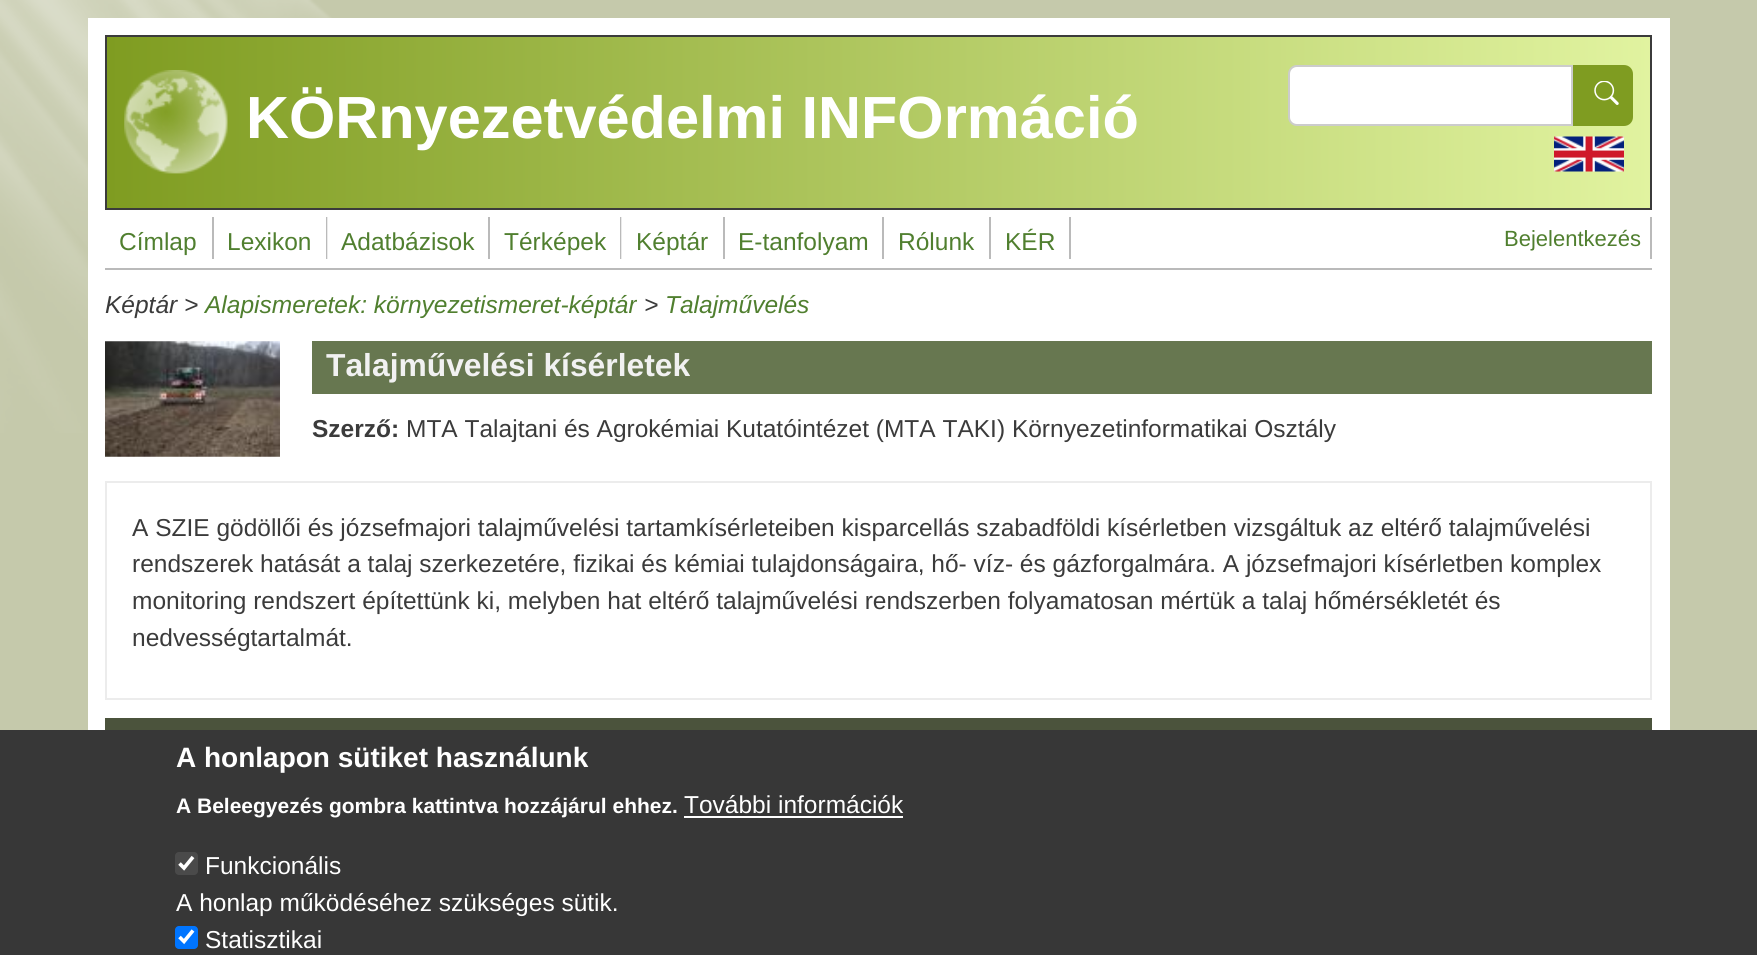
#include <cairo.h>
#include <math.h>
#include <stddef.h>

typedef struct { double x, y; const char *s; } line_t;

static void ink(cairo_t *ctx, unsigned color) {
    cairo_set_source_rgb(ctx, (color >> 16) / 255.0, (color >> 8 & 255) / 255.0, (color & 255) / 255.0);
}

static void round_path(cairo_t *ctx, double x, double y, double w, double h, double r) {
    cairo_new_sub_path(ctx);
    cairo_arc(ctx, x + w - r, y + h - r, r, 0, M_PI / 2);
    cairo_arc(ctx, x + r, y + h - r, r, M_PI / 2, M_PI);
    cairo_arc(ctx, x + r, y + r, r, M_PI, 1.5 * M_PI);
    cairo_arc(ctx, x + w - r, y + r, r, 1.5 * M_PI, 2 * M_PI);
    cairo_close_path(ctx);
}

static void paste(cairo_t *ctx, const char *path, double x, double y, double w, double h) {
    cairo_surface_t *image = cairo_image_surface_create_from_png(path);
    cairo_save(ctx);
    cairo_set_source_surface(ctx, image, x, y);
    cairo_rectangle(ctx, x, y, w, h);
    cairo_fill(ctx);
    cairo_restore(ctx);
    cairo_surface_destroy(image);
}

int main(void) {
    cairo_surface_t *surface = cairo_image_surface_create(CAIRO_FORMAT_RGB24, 1757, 955);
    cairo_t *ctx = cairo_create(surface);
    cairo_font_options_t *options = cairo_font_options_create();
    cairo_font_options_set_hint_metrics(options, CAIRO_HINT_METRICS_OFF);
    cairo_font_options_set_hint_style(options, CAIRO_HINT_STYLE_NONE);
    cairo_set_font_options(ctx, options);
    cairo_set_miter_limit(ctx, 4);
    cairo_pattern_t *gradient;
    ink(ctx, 0xC5C9AB);
    cairo_paint(ctx);
    paste(ctx, "media/1.png", 0, 0, 332, 433);
    ink(ctx, 0xFFFFFF);
    cairo_rectangle(ctx, 88, 18, 1582, 712);
    cairo_fill(ctx);
    gradient = cairo_pattern_create_linear(107, 123, 1650, 122);
    cairo_pattern_add_color_stop_rgba(gradient, 0, 0.498, 0.612, 0.129, 1);
    cairo_pattern_add_color_stop_rgba(gradient, 1, 0.882, 0.953, 0.627, 1);
    cairo_set_source(ctx, gradient);
    cairo_pattern_destroy(gradient);
    cairo_rectangle(ctx, 107, 37, 1543, 171);
    cairo_fill(ctx);
    cairo_rectangle(ctx, 106, 36, 1545, 173);
    ink(ctx, 0x3B3B3B);
    cairo_stroke(ctx);
    paste(ctx, "media/2.png", 124, 70, 104, 104);
    cairo_select_font_face(ctx, "Liberation Sans", CAIRO_FONT_SLANT_NORMAL, CAIRO_FONT_WEIGHT_BOLD);
    cairo_set_font_size(ctx, 59.5);
    ink(ctx, 0xFFFFFF);
    cairo_move_to(ctx, 246, 138);
    cairo_show_text(ctx, "KÖRnyezetvédelmi INFOrmáció");
    cairo_new_path(ctx);
    cairo_move_to(ctx, 1297, 66);
    cairo_line_to(ctx, 1572, 66);
    cairo_line_to(ctx, 1572, 125);
    cairo_line_to(ctx, 1297, 125);
    cairo_curve_to(ctx, 1292.5, 125, 1289, 121.5, 1289, 117);
    cairo_line_to(ctx, 1289, 74);
    cairo_curve_to(ctx, 1289, 69.5, 1292.5, 66, 1297, 66);
    cairo_close_path(ctx);
    cairo_fill_preserve(ctx);
    ink(ctx, 0xCCCCCC);
    cairo_stroke(ctx);
    ink(ctx, 0x7F9C21);
    cairo_new_path(ctx);
    cairo_move_to(ctx, 1574, 66);
    cairo_line_to(ctx, 1624, 66);
    cairo_curve_to(ctx, 1628.5, 66, 1632, 69.5, 1632, 74);
    cairo_line_to(ctx, 1632, 117);
    cairo_curve_to(ctx, 1632, 121.5, 1628.5, 125, 1624, 125);
    cairo_line_to(ctx, 1574, 125);
    cairo_close_path(ctx);
    cairo_fill_preserve(ctx);
    cairo_stroke(ctx);
    paste(ctx, "media/3.png", 1594, 81, 25, 24);
    paste(ctx, "media/4.png", 1554, 136, 70, 36);
    ink(ctx, 0xBABABA);
    cairo_rectangle(ctx, 105, 268, 1547, 2);
    cairo_fill(ctx);
    cairo_rectangle(ctx, 212, 217, 2, 42);
    cairo_fill(ctx);
    cairo_select_font_face(ctx, "Liberation Sans", CAIRO_FONT_SLANT_NORMAL, CAIRO_FONT_WEIGHT_NORMAL);
    cairo_set_font_size(ctx, 24.5);
    ink(ctx, 0x507F2F);
    cairo_move_to(ctx, 119, 250);
    cairo_show_text(ctx, "Címlap");
    ink(ctx, 0xBABABA);
    cairo_rectangle(ctx, 326, 217, 2, 42);
    cairo_fill(ctx);
    ink(ctx, 0x507F2F);
    cairo_move_to(ctx, 227, 250);
    cairo_show_text(ctx, "Lexikon");
    cairo_set_source_rgba(ctx, 1, 1, 1, 0.7);
    cairo_rectangle(ctx, 327, 217, 1, 42);
    cairo_fill(ctx);
    ink(ctx, 0xBABABA);
    cairo_rectangle(ctx, 488, 217, 2, 42);
    cairo_fill(ctx);
    ink(ctx, 0x507F2F);
    cairo_move_to(ctx, 341, 250);
    cairo_show_text(ctx, "Adatbázisok");
    ink(ctx, 0xBABABA);
    cairo_rectangle(ctx, 620, 217, 1, 42);
    cairo_fill(ctx);
    ink(ctx, 0xEAEAEA);
    cairo_rectangle(ctx, 621, 217, 1, 42);
    cairo_fill(ctx);
    ink(ctx, 0x507F2F);
    cairo_move_to(ctx, 504, 250);
    cairo_show_text(ctx, "Térképek");
    ink(ctx, 0xBABABA);
    cairo_rectangle(ctx, 723, 217, 2, 42);
    cairo_fill(ctx);
    ink(ctx, 0x507F2F);
    cairo_move_to(ctx, 636, 250);
    cairo_show_text(ctx, "Képtár");
    ink(ctx, 0xBABABA);
    cairo_rectangle(ctx, 882, 217, 2, 42);
    cairo_fill(ctx);
    ink(ctx, 0x507F2F);
    cairo_move_to(ctx, 738, 250);
    cairo_show_text(ctx, "E-tanfolyam");
    ink(ctx, 0xBABABA);
    cairo_rectangle(ctx, 989, 217, 2, 42);
    cairo_fill(ctx);
    ink(ctx, 0x507F2F);
    cairo_move_to(ctx, 898, 250);
    cairo_show_text(ctx, "Rólunk");
    ink(ctx, 0xBABABA);
    cairo_rectangle(ctx, 1069, 217, 2, 42);
    cairo_fill(ctx);
    ink(ctx, 0x507F2F);
    cairo_move_to(ctx, 1005, 250);
    cairo_show_text(ctx, "KÉR");
    ink(ctx, 0xBABABA);
    cairo_rectangle(ctx, 1650, 217, 2, 42);
    cairo_fill(ctx);
    cairo_set_font_size(ctx, 22);
    ink(ctx, 0x507F2F);
    cairo_move_to(ctx, 1504, 246);
    cairo_show_text(ctx, "Bejelentkezés");
    cairo_select_font_face(ctx, "Liberation Sans", CAIRO_FONT_SLANT_ITALIC, CAIRO_FONT_WEIGHT_NORMAL);
    cairo_set_font_size(ctx, 24.5);
    ink(ctx, 0x3B3B3B);
    cairo_move_to(ctx, 105, 313);
    cairo_show_text(ctx, "Képtár >");
    ink(ctx, 0x507F2F);
    cairo_move_to(ctx, 205, 313);
    cairo_show_text(ctx, "Alapismeretek: környezetismeret-képtár");
    ink(ctx, 0x3B3B3B);
    cairo_move_to(ctx, 644, 313);
    cairo_show_text(ctx, ">");
    ink(ctx, 0x507F2F);
    cairo_move_to(ctx, 665, 313);
    cairo_show_text(ctx, "Talajművelés");
    paste(ctx, "media/5.png", 105, 341, 175, 116);
    ink(ctx, 0x677750);
    cairo_rectangle(ctx, 312, 341, 1340, 53);
    cairo_fill(ctx);
    cairo_select_font_face(ctx, "Liberation Sans", CAIRO_FONT_SLANT_NORMAL, CAIRO_FONT_WEIGHT_BOLD);
    cairo_set_font_size(ctx, 31.8);
    ink(ctx, 0xF1F1F1);
    cairo_move_to(ctx, 326, 376);
    cairo_show_text(ctx, "Talajművelési kísérletek");
    cairo_set_font_size(ctx, 24.5);
    ink(ctx, 0x3B3B3B);
    cairo_move_to(ctx, 312, 437);
    cairo_show_text(ctx, "Szerző:");
    cairo_select_font_face(ctx, "Liberation Sans", CAIRO_FONT_SLANT_NORMAL, CAIRO_FONT_WEIGHT_NORMAL);
    cairo_move_to(ctx, 406, 437);
    cairo_show_text(ctx, "MTA Talajtani és Agrokémiai Kutatóintézet (MTA TAKI) Környezetinformatikai Osztály");
    cairo_rectangle(ctx, 106, 482, 1545, 217);
    ink(ctx, 0xECECEC);
    cairo_stroke(ctx);
    ink(ctx, 0x3B3B3B);
    {
        static const line_t items[] = {
            {132, 536, "A SZIE gödöllői és józsefmajori talajművelési tartamkísérleteiben kisparcellás szabadföldi kísérletben vizsgáltuk az eltérő talajművelési"},
            {132, 572, "rendszerek hatását a talaj szerkezetére, fizikai és kémiai tulajdonságaira, hő- víz- és gázforgalmára. A józsefmajori kísérletben komplex"},
            {132, 609, "monitoring rendszert építettünk ki, melyben hat eltérő talajművelési rendszerben folyamatosan mértük a talaj hőmérsékletét és"},
            {132, 646, "nedvességtartalmát."},
        };
        for (size_t i = 0; i < sizeof items / sizeof *items; i++) {
            cairo_move_to(ctx, items[i].x, items[i].y);
            cairo_show_text(ctx, items[i].s);
        }
    }
    ink(ctx, 0x4B533C);
    cairo_rectangle(ctx, 105, 718, 1547, 12);
    cairo_fill(ctx);
    ink(ctx, 0x373737);
    cairo_rectangle(ctx, 0, 730, 1757, 225);
    cairo_fill(ctx);
    cairo_select_font_face(ctx, "Liberation Sans", CAIRO_FONT_SLANT_NORMAL, CAIRO_FONT_WEIGHT_BOLD);
    cairo_set_font_size(ctx, 28);
    ink(ctx, 0xFFFFFF);
    cairo_move_to(ctx, 176, 767);
    cairo_show_text(ctx, "A honlapon sütiket használunk");
    cairo_set_font_size(ctx, 21);
    cairo_move_to(ctx, 176, 813);
    cairo_show_text(ctx, "A Beleegyezés gombra kattintva hozzájárul ehhez.");
    cairo_select_font_face(ctx, "Liberation Sans", CAIRO_FONT_SLANT_NORMAL, CAIRO_FONT_WEIGHT_NORMAL);
    cairo_set_font_size(ctx, 24.5);
    cairo_move_to(ctx, 684, 813);
    cairo_show_text(ctx, "További információk");
    cairo_rectangle(ctx, 684, 816, 219, 2);
    cairo_fill(ctx);
    ink(ctx, 0x4A4A4A);
    round_path(ctx, 175, 852, 23, 23, 4);
    cairo_fill(ctx);
    cairo_new_path(ctx);
    cairo_move_to(ctx, 179.5, 863.5);
    cairo_line_to(ctx, 184, 868);
    cairo_line_to(ctx, 193, 857);
    ink(ctx, 0xFFFFFF);
    cairo_set_line_width(ctx, 3.6);
    cairo_stroke(ctx);
    cairo_move_to(ctx, 205, 874);
    cairo_show_text(ctx, "Funkcionális");
    cairo_move_to(ctx, 176, 911);
    cairo_show_text(ctx, "A honlap működéséhez szükséges sütik.");
    ink(ctx, 0x0075FF);
    round_path(ctx, 175, 926, 23, 23, 4);
    cairo_fill(ctx);
    cairo_new_path(ctx);
    cairo_move_to(ctx, 179.5, 937);
    cairo_line_to(ctx, 184, 941.5);
    cairo_line_to(ctx, 193, 930.5);
    ink(ctx, 0xFFFFFF);
    cairo_stroke(ctx);
    cairo_move_to(ctx, 205, 948);
    cairo_show_text(ctx, "Statisztikai");
    cairo_surface_write_to_png(surface, "image.png");
    cairo_font_options_destroy(options);
    cairo_destroy(ctx);
    cairo_surface_destroy(surface);
    return 0;
}
